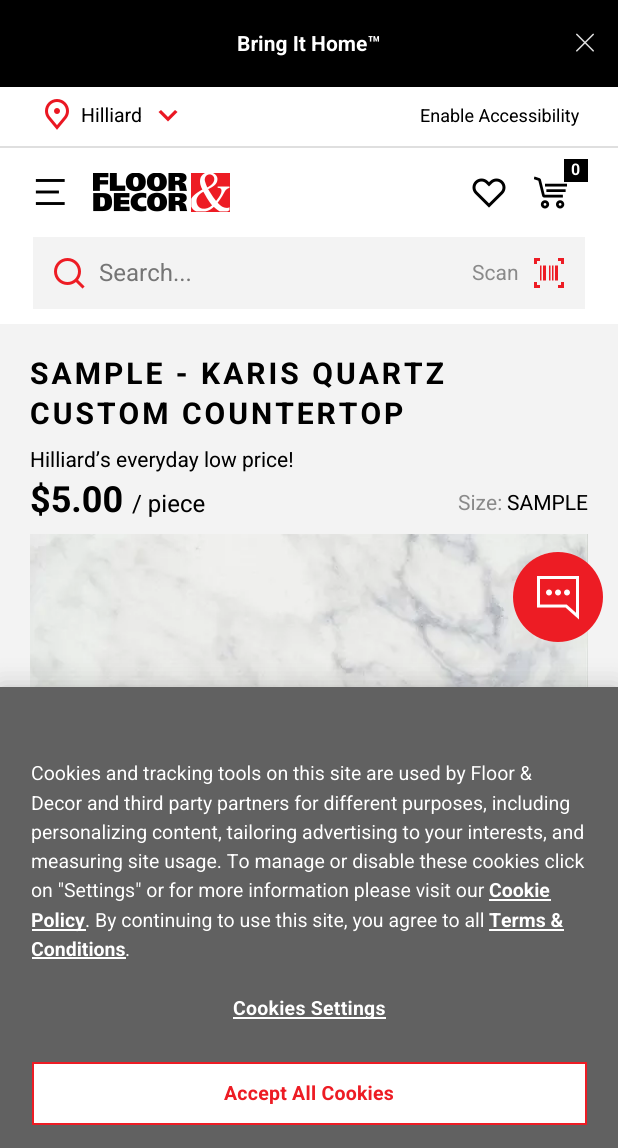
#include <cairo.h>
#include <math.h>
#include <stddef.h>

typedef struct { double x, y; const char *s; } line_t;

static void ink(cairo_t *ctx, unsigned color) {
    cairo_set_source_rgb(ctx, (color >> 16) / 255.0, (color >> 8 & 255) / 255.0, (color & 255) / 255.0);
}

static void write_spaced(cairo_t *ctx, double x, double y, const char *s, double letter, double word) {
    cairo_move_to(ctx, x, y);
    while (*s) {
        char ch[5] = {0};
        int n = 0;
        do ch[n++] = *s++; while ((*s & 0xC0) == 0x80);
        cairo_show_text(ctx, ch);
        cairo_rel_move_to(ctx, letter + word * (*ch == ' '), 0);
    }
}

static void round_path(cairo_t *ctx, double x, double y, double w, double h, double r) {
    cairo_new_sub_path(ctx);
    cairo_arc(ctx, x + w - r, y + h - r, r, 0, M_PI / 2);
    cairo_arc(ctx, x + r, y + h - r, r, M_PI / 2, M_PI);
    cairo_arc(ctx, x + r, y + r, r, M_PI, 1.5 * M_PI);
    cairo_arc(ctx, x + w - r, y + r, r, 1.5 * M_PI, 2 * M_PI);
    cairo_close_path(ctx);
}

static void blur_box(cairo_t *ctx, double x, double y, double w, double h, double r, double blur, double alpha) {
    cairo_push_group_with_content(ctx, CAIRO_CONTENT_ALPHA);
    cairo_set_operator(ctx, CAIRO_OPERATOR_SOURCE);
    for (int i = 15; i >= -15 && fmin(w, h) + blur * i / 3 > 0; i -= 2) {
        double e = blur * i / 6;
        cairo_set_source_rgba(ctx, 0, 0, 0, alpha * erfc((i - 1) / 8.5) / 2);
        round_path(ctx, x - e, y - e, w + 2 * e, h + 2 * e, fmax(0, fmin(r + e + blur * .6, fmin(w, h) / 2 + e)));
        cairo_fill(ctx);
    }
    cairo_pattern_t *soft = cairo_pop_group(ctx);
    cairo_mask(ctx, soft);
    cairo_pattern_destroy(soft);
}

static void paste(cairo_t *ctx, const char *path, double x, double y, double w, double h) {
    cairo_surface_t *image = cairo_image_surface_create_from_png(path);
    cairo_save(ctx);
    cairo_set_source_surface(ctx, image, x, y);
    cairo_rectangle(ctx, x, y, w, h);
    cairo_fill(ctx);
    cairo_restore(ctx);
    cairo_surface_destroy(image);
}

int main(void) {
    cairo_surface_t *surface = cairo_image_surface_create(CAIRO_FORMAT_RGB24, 618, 1148);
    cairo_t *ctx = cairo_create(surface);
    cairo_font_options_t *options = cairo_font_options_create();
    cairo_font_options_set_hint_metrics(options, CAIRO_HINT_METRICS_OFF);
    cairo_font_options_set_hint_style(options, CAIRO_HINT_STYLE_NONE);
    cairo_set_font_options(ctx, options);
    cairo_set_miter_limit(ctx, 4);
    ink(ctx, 0xFFFFFF);
    cairo_paint(ctx);
    ink(ctx, 0x000000);
    cairo_rectangle(ctx, 0, 0, 618, 87);
    cairo_fill(ctx);
    cairo_select_font_face(ctx, "Roboto", CAIRO_FONT_SLANT_NORMAL, CAIRO_FONT_WEIGHT_BOLD);
    cairo_set_font_size(ctx, 21);
    ink(ctx, 0xFFFFFF);
    cairo_move_to(ctx, 237, 51);
    cairo_show_text(ctx, "Bring It Home™");
    paste(ctx, "media/1.png", 576, 33, 18, 19);
    paste(ctx, "media/2.png", 45, 99, 24, 31);
    cairo_select_font_face(ctx, "Roboto", CAIRO_FONT_SLANT_NORMAL, CAIRO_FONT_WEIGHT_NORMAL);
    cairo_set_font_size(ctx, 19.5);
    ink(ctx, 0x000000);
    cairo_move_to(ctx, 81, 122);
    cairo_show_text(ctx, "Hilliard");
    ink(ctx, 0xEA1722);
    cairo_set_fill_rule(ctx, CAIRO_FILL_RULE_EVEN_ODD);
    cairo_new_path(ctx);
    cairo_move_to(ctx, 175, 110);
    cairo_line_to(ctx, 177.5, 112);
    cairo_line_to(ctx, 168, 121.5);
    cairo_line_to(ctx, 158.5, 112);
    cairo_line_to(ctx, 161, 110);
    cairo_line_to(ctx, 168, 117);
    cairo_close_path(ctx);
    cairo_fill(ctx);
    ink(ctx, 0xDFDFDF);
    cairo_rectangle(ctx, 0, 146, 618, 2);
    cairo_fill(ctx);
    paste(ctx, "media/3.png", 534, 176, 33, 33);
    ink(ctx, 0x000000);
    cairo_rectangle(ctx, 564, 159, 24, 23);
    cairo_fill(ctx);
    cairo_select_font_face(ctx, "Roboto", CAIRO_FONT_SLANT_NORMAL, CAIRO_FONT_WEIGHT_BOLD);
    cairo_set_font_size(ctx, 16);
    ink(ctx, 0xFFFFFF);
    cairo_move_to(ctx, 571, 175);
    cairo_show_text(ctx, "0");
    paste(ctx, "media/4.png", 35, 179, 30, 26);
    paste(ctx, "media/5.png", 93, 173, 137, 39);
    paste(ctx, "media/6.png", 472, 178, 34, 30);
    ink(ctx, 0xF3F3F3);
    cairo_rectangle(ctx, 33, 237, 552, 72);
    cairo_fill(ctx);
    paste(ctx, "media/7.png", 54, 258, 31, 31);
    cairo_select_font_face(ctx, "Roboto", CAIRO_FONT_SLANT_NORMAL, CAIRO_FONT_WEIGHT_NORMAL);
    cairo_set_font_size(ctx, 24);
    ink(ctx, 0x757575);
    cairo_move_to(ctx, 99, 281);
    cairo_show_text(ctx, "Search...");
    cairo_set_font_size(ctx, 21);
    ink(ctx, 0x8A8A8A);
    cairo_move_to(ctx, 472, 280);
    cairo_show_text(ctx, "Scan");
    paste(ctx, "media/8.png", 534, 258, 30, 30);
    ink(ctx, 0xF3F3F3);
    cairo_rectangle(ctx, 0, 324, 618, 363);
    cairo_fill(ctx);
    cairo_select_font_face(ctx, "Roboto", CAIRO_FONT_SLANT_NORMAL, CAIRO_FONT_WEIGHT_BOLD);
    cairo_set_font_size(ctx, 30);
    ink(ctx, 0x000000);
    write_spaced(ctx, 30, 384, "SAMPLE - KARIS QUARTZ", 3, 0);
    write_spaced(ctx, 30, 424, "CUSTOM COUNTERTOP", 3, 0);
    cairo_select_font_face(ctx, "Roboto", CAIRO_FONT_SLANT_NORMAL, CAIRO_FONT_WEIGHT_NORMAL);
    cairo_set_font_size(ctx, 21);
    cairo_move_to(ctx, 30, 467);
    cairo_show_text(ctx, "Hilliard’s everyday low price!");
    paste(ctx, "media/9.png", 30, 534, 558, 153);
    cairo_select_font_face(ctx, "Roboto", CAIRO_FONT_SLANT_NORMAL, CAIRO_FONT_WEIGHT_BOLD);
    cairo_set_font_size(ctx, 36);
    cairo_move_to(ctx, 30, 512);
    cairo_show_text(ctx, "$5.00");
    cairo_select_font_face(ctx, "Roboto", CAIRO_FONT_SLANT_NORMAL, CAIRO_FONT_WEIGHT_NORMAL);
    cairo_set_font_size(ctx, 24);
    cairo_move_to(ctx, 132, 512);
    cairo_show_text(ctx, "/ piece");
    cairo_set_font_size(ctx, 21);
    ink(ctx, 0x8A8A8A);
    cairo_move_to(ctx, 458, 510);
    cairo_show_text(ctx, "Size:");
    ink(ctx, 0x000000);
    cairo_move_to(ctx, 507, 510);
    cairo_show_text(ctx, "SAMPLE");
    ink(ctx, 0xED1C24);
    cairo_new_path(ctx);
    cairo_arc(ctx, 558, 597, 45, 0, 2 * M_PI);
    cairo_fill(ctx);
    paste(ctx, "media/10.png", 537, 576, 42, 44);
    cairo_set_font_size(ctx, 18);
    ink(ctx, 0x000000);
    cairo_move_to(ctx, 420, 122);
    cairo_show_text(ctx, "Enable Accessibility");
    ink(ctx, 0x000000);
    blur_box(ctx, 0, 687, 618, 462, 0, 13.5, 0.2);
    ink(ctx, 0x616161);
    cairo_rectangle(ctx, 0, 687, 618, 461);
    cairo_fill(ctx);
    cairo_set_font_size(ctx, 19.5);
    ink(ctx, 0xFFFFFF);
    {
        static const line_t items[] = {
            {31, 780, "Cookies and tracking tools on this site are used by Floor &"},
            {31, 810, "Decor and third party partners for different purposes, including"},
            {31, 839, "personalizing content, tailoring advertising to your interests, and"},
            {31, 868, "measuring site usage. To manage or disable these cookies click"},
        };
        for (size_t i = 0; i < sizeof items / sizeof *items; i++) {
            cairo_move_to(ctx, items[i].x, items[i].y);
            cairo_show_text(ctx, items[i].s);
        }
    }
    cairo_save(ctx);
    cairo_set_fill_rule(ctx, CAIRO_FILL_RULE_WINDING);
    cairo_rectangle(ctx, 32, 759, 555, 206);
    cairo_clip(ctx);
    cairo_move_to(ctx, 31, 897);
    cairo_show_text(ctx, "on \"Settings\" or for more information please visit our");
    cairo_restore(ctx);
    cairo_select_font_face(ctx, "Roboto", CAIRO_FONT_SLANT_NORMAL, CAIRO_FONT_WEIGHT_BOLD);
    cairo_move_to(ctx, 489, 897);
    cairo_show_text(ctx, "Cookie");
    cairo_rectangle(ctx, 489, 899, 62, 2);
    cairo_fill(ctx);
    cairo_rectangle(ctx, 32, 929, 54, 2);
    cairo_fill(ctx);
    cairo_move_to(ctx, 31, 927);
    cairo_show_text(ctx, "Policy");
    cairo_select_font_face(ctx, "Roboto", CAIRO_FONT_SLANT_NORMAL, CAIRO_FONT_WEIGHT_NORMAL);
    cairo_move_to(ctx, 85, 927);
    cairo_show_text(ctx, ". By continuing to use this site, you agree to all");
    cairo_select_font_face(ctx, "Roboto", CAIRO_FONT_SLANT_NORMAL, CAIRO_FONT_WEIGHT_BOLD);
    cairo_move_to(ctx, 489, 927);
    cairo_show_text(ctx, "Terms &");
    cairo_rectangle(ctx, 489, 929, 75, 2);
    cairo_fill(ctx);
    cairo_save(ctx);
    cairo_set_fill_rule(ctx, CAIRO_FILL_RULE_WINDING);
    cairo_rectangle(ctx, 32, 759, 555, 206);
    cairo_clip(ctx);
    cairo_move_to(ctx, 31, 956);
    cairo_show_text(ctx, "Conditions");
    cairo_restore(ctx);
    cairo_rectangle(ctx, 32, 957, 94, 2);
    cairo_fill(ctx);
    cairo_select_font_face(ctx, "Roboto", CAIRO_FONT_SLANT_NORMAL, CAIRO_FONT_WEIGHT_NORMAL);
    cairo_move_to(ctx, 125, 956);
    cairo_show_text(ctx, ".");
    cairo_rectangle(ctx, 233, 1017, 153, 2);
    cairo_fill(ctx);
    cairo_select_font_face(ctx, "Roboto", CAIRO_FONT_SLANT_NORMAL, CAIRO_FONT_WEIGHT_BOLD);
    write_spaced(ctx, 233, 1015, "Cookies Settings", 0.25, 0);
    cairo_rectangle(ctx, 33, 1063, 553, 61);
    cairo_fill_preserve(ctx);
    ink(ctx, 0xED1C24);
    cairo_stroke(ctx);
    write_spaced(ctx, 224, 1100, "Accept All Cookies", 0.25, 0);
    cairo_surface_write_to_png(surface, "image.png");
    cairo_font_options_destroy(options);
    cairo_destroy(ctx);
    cairo_surface_destroy(surface);
    return 0;
}
